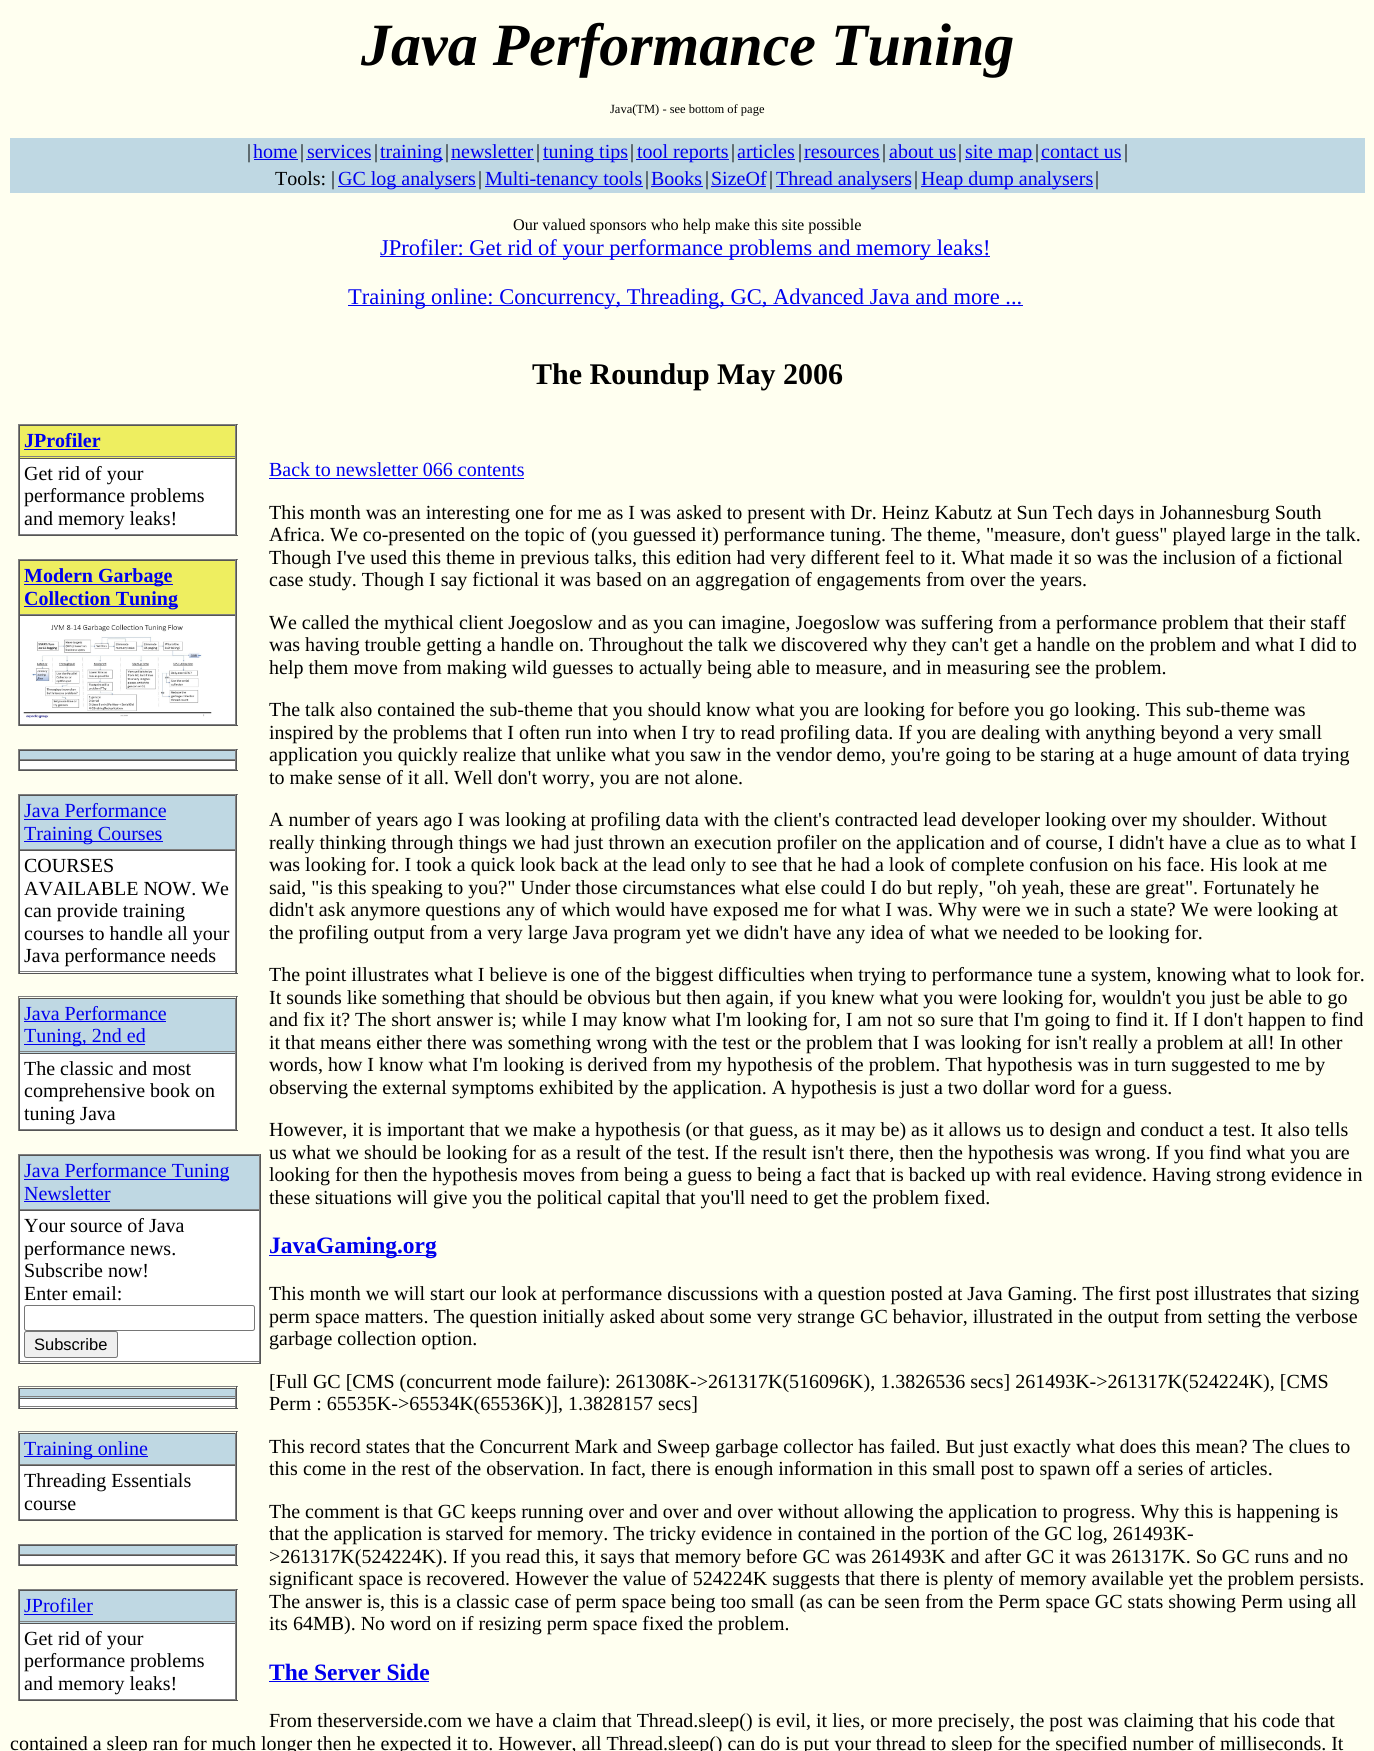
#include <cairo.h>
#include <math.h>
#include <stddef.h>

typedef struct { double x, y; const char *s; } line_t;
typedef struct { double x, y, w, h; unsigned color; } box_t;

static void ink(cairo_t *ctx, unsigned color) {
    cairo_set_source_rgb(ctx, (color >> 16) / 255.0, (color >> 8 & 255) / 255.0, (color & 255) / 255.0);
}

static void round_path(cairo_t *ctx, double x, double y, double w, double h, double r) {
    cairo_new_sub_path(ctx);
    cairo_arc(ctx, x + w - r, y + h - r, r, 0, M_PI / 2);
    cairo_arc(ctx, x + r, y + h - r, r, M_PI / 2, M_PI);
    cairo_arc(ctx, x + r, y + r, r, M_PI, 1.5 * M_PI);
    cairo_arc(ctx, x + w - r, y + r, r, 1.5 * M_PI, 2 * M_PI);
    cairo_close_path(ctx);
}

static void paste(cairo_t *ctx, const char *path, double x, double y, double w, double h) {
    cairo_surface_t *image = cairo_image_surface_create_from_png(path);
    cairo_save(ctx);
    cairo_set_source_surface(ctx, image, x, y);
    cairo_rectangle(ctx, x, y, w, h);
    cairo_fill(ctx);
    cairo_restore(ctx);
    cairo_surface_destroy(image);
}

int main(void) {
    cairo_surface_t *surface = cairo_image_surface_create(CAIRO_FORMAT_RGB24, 1374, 1751);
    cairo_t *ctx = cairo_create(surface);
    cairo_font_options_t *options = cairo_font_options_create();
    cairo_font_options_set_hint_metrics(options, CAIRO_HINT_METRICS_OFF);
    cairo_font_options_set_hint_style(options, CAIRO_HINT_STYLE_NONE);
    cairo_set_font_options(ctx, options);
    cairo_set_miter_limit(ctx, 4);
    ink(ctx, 0xFFFFF0);
    cairo_paint(ctx);
    cairo_select_font_face(ctx, "Liberation Serif", CAIRO_FONT_SLANT_ITALIC, CAIRO_FONT_WEIGHT_BOLD);
    cairo_set_font_size(ctx, 60);
    ink(ctx, 0x000000);
    cairo_move_to(ctx, 361, 65);
    cairo_show_text(ctx, "Java Performance Tuning");
    cairo_select_font_face(ctx, "Liberation Serif", CAIRO_FONT_SLANT_NORMAL, CAIRO_FONT_WEIGHT_NORMAL);
    cairo_set_font_size(ctx, 12.5);
    cairo_move_to(ctx, 610, 113);
    cairo_show_text(ctx, "Java(TM) - see bottom of page");
    ink(ctx, 0xBFD8E3);
    cairo_rectangle(ctx, 10, 138, 1355, 55);
    cairo_fill(ctx);
    cairo_set_font_size(ctx, 20);
    ink(ctx, 0x000000);
    cairo_move_to(ctx, 247, 158);
    cairo_show_text(ctx, "|");
    ink(ctx, 0x0000EE);
    cairo_move_to(ctx, 253, 158);
    cairo_show_text(ctx, "home");
    cairo_rectangle(ctx, 254, 159, 44, 1);
    cairo_fill(ctx);
    ink(ctx, 0x000000);
    cairo_move_to(ctx, 300, 158);
    cairo_show_text(ctx, "|");
    ink(ctx, 0x0000EE);
    cairo_move_to(ctx, 307, 158);
    cairo_show_text(ctx, "services");
    cairo_rectangle(ctx, 306, 159, 65, 1);
    cairo_fill(ctx);
    ink(ctx, 0x000000);
    cairo_move_to(ctx, 374, 158);
    cairo_show_text(ctx, "|");
    ink(ctx, 0x0000EE);
    cairo_rectangle(ctx, 380, 159, 63, 1);
    cairo_fill(ctx);
    cairo_move_to(ctx, 380, 158);
    cairo_show_text(ctx, "training");
    ink(ctx, 0x000000);
    cairo_move_to(ctx, 445, 158);
    cairo_show_text(ctx, "|");
    ink(ctx, 0x0000EE);
    cairo_move_to(ctx, 451, 158);
    cairo_show_text(ctx, "newsletter");
    cairo_rectangle(ctx, 451, 159, 83, 1);
    cairo_fill(ctx);
    ink(ctx, 0x000000);
    cairo_move_to(ctx, 536, 158);
    cairo_show_text(ctx, "|");
    ink(ctx, 0x0000EE);
    cairo_rectangle(ctx, 543, 159, 85, 1);
    cairo_fill(ctx);
    cairo_move_to(ctx, 543, 158);
    cairo_show_text(ctx, "tuning tips");
    ink(ctx, 0x000000);
    cairo_move_to(ctx, 630, 158);
    cairo_show_text(ctx, "|");
    ink(ctx, 0x0000EE);
    cairo_rectangle(ctx, 636, 159, 93, 1);
    cairo_fill(ctx);
    cairo_move_to(ctx, 637, 158);
    cairo_show_text(ctx, "tool reports");
    ink(ctx, 0x000000);
    cairo_move_to(ctx, 731, 158);
    cairo_show_text(ctx, "|");
    ink(ctx, 0x0000EE);
    cairo_move_to(ctx, 737, 158);
    cairo_show_text(ctx, "articles");
    cairo_rectangle(ctx, 738, 159, 57, 1);
    cairo_fill(ctx);
    ink(ctx, 0x000000);
    cairo_move_to(ctx, 798, 158);
    cairo_show_text(ctx, "|");
    ink(ctx, 0x0000EE);
    cairo_move_to(ctx, 804, 158);
    cairo_show_text(ctx, "resources");
    cairo_rectangle(ctx, 804, 159, 76, 1);
    cairo_fill(ctx);
    ink(ctx, 0x000000);
    cairo_move_to(ctx, 882, 158);
    cairo_show_text(ctx, "|");
    ink(ctx, 0x0000EE);
    cairo_move_to(ctx, 889, 158);
    cairo_show_text(ctx, "about us");
    cairo_rectangle(ctx, 889, 159, 67, 1);
    cairo_fill(ctx);
    ink(ctx, 0x000000);
    cairo_move_to(ctx, 958, 158);
    cairo_show_text(ctx, "|");
    ink(ctx, 0x0000EE);
    cairo_rectangle(ctx, 965, 159, 68, 1);
    cairo_fill(ctx);
    cairo_move_to(ctx, 965, 158);
    cairo_show_text(ctx, "site map");
    ink(ctx, 0x000000);
    cairo_move_to(ctx, 1035, 158);
    cairo_show_text(ctx, "|");
    ink(ctx, 0x0000EE);
    cairo_move_to(ctx, 1041, 158);
    cairo_show_text(ctx, "contact us");
    cairo_rectangle(ctx, 1041, 159, 80, 1);
    cairo_fill(ctx);
    ink(ctx, 0x000000);
    cairo_move_to(ctx, 1124, 158);
    cairo_show_text(ctx, "|");
    cairo_move_to(ctx, 275, 185);
    cairo_show_text(ctx, "Tools: |");
    ink(ctx, 0x0000EE);
    cairo_rectangle(ctx, 338, 186, 138, 1);
    cairo_fill(ctx);
    cairo_move_to(ctx, 338, 185);
    cairo_show_text(ctx, "GC log analysers");
    ink(ctx, 0x000000);
    cairo_move_to(ctx, 478, 185);
    cairo_show_text(ctx, "|");
    ink(ctx, 0x0000EE);
    cairo_rectangle(ctx, 485, 186, 158, 1);
    cairo_fill(ctx);
    cairo_move_to(ctx, 485, 185);
    cairo_show_text(ctx, "Multi-tenancy tools");
    ink(ctx, 0x000000);
    cairo_move_to(ctx, 645, 185);
    cairo_show_text(ctx, "|");
    ink(ctx, 0x0000EE);
    cairo_move_to(ctx, 651, 185);
    cairo_show_text(ctx, "Books");
    cairo_rectangle(ctx, 651, 186, 52, 1);
    cairo_fill(ctx);
    ink(ctx, 0x000000);
    cairo_move_to(ctx, 705, 185);
    cairo_show_text(ctx, "|");
    ink(ctx, 0x0000EE);
    cairo_move_to(ctx, 711, 185);
    cairo_show_text(ctx, "SizeOf");
    cairo_rectangle(ctx, 711, 186, 55, 1);
    cairo_fill(ctx);
    ink(ctx, 0x000000);
    cairo_move_to(ctx, 769, 185);
    cairo_show_text(ctx, "|");
    ink(ctx, 0x0000EE);
    cairo_rectangle(ctx, 776, 186, 135, 1);
    cairo_fill(ctx);
    cairo_move_to(ctx, 776, 185);
    cairo_show_text(ctx, "Thread analysers");
    ink(ctx, 0x000000);
    cairo_move_to(ctx, 914, 185);
    cairo_show_text(ctx, "|");
    ink(ctx, 0x0000EE);
    cairo_rectangle(ctx, 921, 186, 172, 1);
    cairo_fill(ctx);
    cairo_move_to(ctx, 921, 185);
    cairo_show_text(ctx, "Heap dump analysers");
    ink(ctx, 0x000000);
    cairo_move_to(ctx, 1095, 185);
    cairo_show_text(ctx, "|");
    cairo_set_font_size(ctx, 16.25);
    cairo_move_to(ctx, 513, 230);
    cairo_show_text(ctx, "Our valued sponsors who help make this site possible");
    ink(ctx, 0x0000EE);
    cairo_rectangle(ctx, 380, 256, 610, 1);
    cairo_fill(ctx);
    cairo_set_font_size(ctx, 22.5);
    cairo_move_to(ctx, 380, 255);
    cairo_show_text(ctx, "JProfiler: Get rid of your performance problems and memory leaks!");
    cairo_rectangle(ctx, 348, 305, 675, 1);
    cairo_fill(ctx);
    cairo_move_to(ctx, 348, 304);
    cairo_show_text(ctx, "Training online: Concurrency, Threading, GC, Advanced Java and more ...");
    cairo_select_font_face(ctx, "Liberation Serif", CAIRO_FONT_SLANT_NORMAL, CAIRO_FONT_WEIGHT_BOLD);
    cairo_set_font_size(ctx, 30);
    ink(ctx, 0x000000);
    cairo_move_to(ctx, 532, 384);
    cairo_show_text(ctx, "The Roundup May 2006");
    {
        static const box_t items[] = {
            {18, 424, 220, 1, 0x808080},
            {236, 424, 1, 112, 0x555555},
            {18, 535, 220, 1, 0x555555},
            {18, 424, 1, 112, 0x808080},
            {20, 426, 215, 32, 0xEEEE60},
            {19, 425, 217, 1, 0x555555},
            {235, 425, 1, 33, 0x808080},
            {19, 456, 217, 1, 0x808080},
            {19, 425, 1, 33, 0x555555},
        };
        for (size_t i = 0; i < sizeof items / sizeof *items; i++) {
            ink(ctx, items[i].color);
            cairo_rectangle(ctx, items[i].x, items[i].y, items[i].w, items[i].h);
            cairo_fill(ctx);
        }
    }
    cairo_set_font_size(ctx, 20);
    ink(ctx, 0x0000EE);
    cairo_move_to(ctx, 24, 447);
    cairo_show_text(ctx, "JProfiler");
    {
        static const box_t items[] = {
            {24, 449, 76, 1, 0x0000EE},
            {20, 459, 215, 75, 0xFFFFFF},
            {19, 458, 217, 1, 0x555555},
            {235, 458, 1, 77, 0x808080},
            {19, 534, 217, 1, 0x808080},
            {19, 458, 1, 77, 0x555555},
        };
        for (size_t i = 0; i < sizeof items / sizeof *items; i++) {
            ink(ctx, items[i].color);
            cairo_rectangle(ctx, items[i].x, items[i].y, items[i].w, items[i].h);
            cairo_fill(ctx);
        }
    }
    cairo_select_font_face(ctx, "Liberation Serif", CAIRO_FONT_SLANT_NORMAL, CAIRO_FONT_WEIGHT_NORMAL);
    ink(ctx, 0x000000);
    {
        static const line_t items[] = {
            {24, 480, "Get rid of your"},
            {24, 502, "performance problems"},
            {24, 525, "and memory leaks!"},
        };
        for (size_t i = 0; i < sizeof items / sizeof *items; i++) {
            cairo_move_to(ctx, items[i].x, items[i].y);
            cairo_show_text(ctx, items[i].s);
        }
    }
    {
        static const box_t items[] = {
            {18, 559, 220, 1, 0x808080},
            {236, 559, 1, 167, 0x555555},
            {18, 725, 220, 1, 0x555555},
            {18, 559, 1, 167, 0x808080},
            {20, 561, 215, 53, 0xEEEE60},
            {19, 560, 217, 1, 0x555555},
            {235, 560, 1, 55, 0x808080},
            {19, 614, 217, 1, 0x808080},
            {19, 560, 1, 55, 0x555555},
            {24, 584, 149, 1, 0x0000EE},
        };
        for (size_t i = 0; i < sizeof items / sizeof *items; i++) {
            ink(ctx, items[i].color);
            cairo_rectangle(ctx, items[i].x, items[i].y, items[i].w, items[i].h);
            cairo_fill(ctx);
        }
    }
    cairo_select_font_face(ctx, "Liberation Serif", CAIRO_FONT_SLANT_NORMAL, CAIRO_FONT_WEIGHT_BOLD);
    cairo_move_to(ctx, 24, 582);
    cairo_show_text(ctx, "Modern Garbage");
    cairo_rectangle(ctx, 24, 606, 154, 1);
    cairo_fill(ctx);
    cairo_move_to(ctx, 24, 605);
    cairo_show_text(ctx, "Collection Tuning");
    {
        static const box_t items[] = {
            {20, 616, 215, 108, 0xFFFFFF},
            {19, 615, 217, 1, 0x555555},
            {235, 615, 1, 110, 0x808080},
            {19, 724, 217, 1, 0x808080},
            {19, 615, 1, 110, 0x555555},
        };
        for (size_t i = 0; i < sizeof items / sizeof *items; i++) {
            ink(ctx, items[i].color);
            cairo_rectangle(ctx, items[i].x, items[i].y, items[i].w, items[i].h);
            cairo_fill(ctx);
        }
    }
    paste(ctx, "media/1.png", 23, 624, 189, 94);
    {
        static const box_t items[] = {
            {18, 749, 220, 1, 0x808080},
            {236, 749, 1, 22, 0x555555},
            {18, 770, 220, 1, 0x555555},
            {18, 749, 1, 22, 0x808080},
            {20, 751, 215, 8, 0xBFD8E3},
            {19, 750, 217, 1, 0x555555},
            {235, 750, 1, 10, 0x808080},
            {19, 759, 217, 1, 0x808080},
            {19, 750, 1, 10, 0x555555},
            {20, 761, 215, 8, 0xFFFFFF},
            {19, 760, 217, 1, 0x555555},
            {235, 760, 1, 10, 0x808080},
            {19, 769, 217, 1, 0x808080},
            {19, 760, 1, 10, 0x555555},
            {18, 794, 220, 1, 0x808080},
            {236, 794, 1, 180, 0x555555},
            {18, 973, 220, 1, 0x555555},
            {18, 794, 1, 180, 0x808080},
            {20, 796, 215, 53, 0xBFD8E3},
            {19, 795, 217, 1, 0x555555},
            {235, 795, 1, 55, 0x808080},
            {19, 849, 217, 1, 0x808080},
            {19, 795, 1, 55, 0x555555},
        };
        for (size_t i = 0; i < sizeof items / sizeof *items; i++) {
            ink(ctx, items[i].color);
            cairo_rectangle(ctx, items[i].x, items[i].y, items[i].w, items[i].h);
            cairo_fill(ctx);
        }
    }
    cairo_select_font_face(ctx, "Liberation Serif", CAIRO_FONT_SLANT_NORMAL, CAIRO_FONT_WEIGHT_NORMAL);
    ink(ctx, 0x0000EE);
    cairo_move_to(ctx, 24, 817);
    cairo_show_text(ctx, "Java Performance");
    cairo_rectangle(ctx, 24, 819, 142, 1);
    cairo_fill(ctx);
    cairo_rectangle(ctx, 24, 841, 139, 1);
    cairo_fill(ctx);
    cairo_move_to(ctx, 24, 840);
    cairo_show_text(ctx, "Training Courses");
    {
        static const box_t items[] = {
            {20, 851, 215, 122, 0xFFFFFF},
            {19, 850, 217, 1, 0x555555},
            {235, 850, 1, 123, 0x808080},
            {19, 971, 217, 1, 0x808080},
            {19, 850, 1, 123, 0x555555},
        };
        for (size_t i = 0; i < sizeof items / sizeof *items; i++) {
            ink(ctx, items[i].color);
            cairo_rectangle(ctx, items[i].x, items[i].y, items[i].w, items[i].h);
            cairo_fill(ctx);
        }
    }
    ink(ctx, 0x000000);
    {
        static const line_t items[] = {
            {24, 872, "COURSES"},
            {24, 895, "AVAILABLE NOW. We"},
            {24, 917, "can provide training"},
            {24, 940, "courses to handle all your"},
            {24, 962, "Java performance needs"},
        };
        for (size_t i = 0; i < sizeof items / sizeof *items; i++) {
            cairo_move_to(ctx, items[i].x, items[i].y);
            cairo_show_text(ctx, items[i].s);
        }
    }
    {
        static const box_t items[] = {
            {18, 996, 220, 1, 0x808080},
            {236, 996, 1, 135, 0x555555},
            {18, 1130, 220, 1, 0x555555},
            {18, 996, 1, 135, 0x808080},
            {20, 999, 215, 54, 0xBFD8E3},
            {19, 998, 217, 1, 0x555555},
            {235, 998, 1, 55, 0x808080},
            {19, 1051, 217, 1, 0x808080},
            {19, 998, 1, 55, 0x555555},
        };
        for (size_t i = 0; i < sizeof items / sizeof *items; i++) {
            ink(ctx, items[i].color);
            cairo_rectangle(ctx, items[i].x, items[i].y, items[i].w, items[i].h);
            cairo_fill(ctx);
        }
    }
    ink(ctx, 0x0000EE);
    cairo_move_to(ctx, 24, 1020);
    cairo_show_text(ctx, "Java Performance");
    cairo_rectangle(ctx, 24, 1021, 142, 1);
    cairo_fill(ctx);
    cairo_rectangle(ctx, 24, 1044, 121, 1);
    cairo_fill(ctx);
    cairo_move_to(ctx, 24, 1042);
    cairo_show_text(ctx, "Tuning, 2nd ed");
    {
        static const box_t items[] = {
            {20, 1054, 215, 75, 0xFFFFFF},
            {19, 1053, 217, 1, 0x555555},
            {235, 1053, 1, 77, 0x808080},
            {19, 1129, 217, 1, 0x808080},
            {19, 1053, 1, 77, 0x555555},
        };
        for (size_t i = 0; i < sizeof items / sizeof *items; i++) {
            ink(ctx, items[i].color);
            cairo_rectangle(ctx, items[i].x, items[i].y, items[i].w, items[i].h);
            cairo_fill(ctx);
        }
    }
    ink(ctx, 0x000000);
    {
        static const line_t items[] = {
            {24, 1075, "The classic and most"},
            {24, 1097, "comprehensive book on"},
            {24, 1120, "tuning Java"},
        };
        for (size_t i = 0; i < sizeof items / sizeof *items; i++) {
            cairo_move_to(ctx, items[i].x, items[i].y);
            cairo_show_text(ctx, items[i].s);
        }
    }
    {
        static const box_t items[] = {
            {18, 1154, 243, 1, 0x808080},
            {260, 1154, 1, 210, 0x555555},
            {18, 1363, 243, 1, 0x555555},
            {18, 1154, 1, 210, 0x808080},
            {20, 1156, 239, 53, 0xBFD8E3},
            {19, 1155, 241, 1, 0x555555},
            {259, 1155, 1, 55, 0x808080},
            {19, 1209, 241, 1, 0x808080},
            {19, 1155, 1, 55, 0x555555},
            {24, 1179, 205, 1, 0x0000EE},
        };
        for (size_t i = 0; i < sizeof items / sizeof *items; i++) {
            ink(ctx, items[i].color);
            cairo_rectangle(ctx, items[i].x, items[i].y, items[i].w, items[i].h);
            cairo_fill(ctx);
        }
    }
    cairo_move_to(ctx, 24, 1177);
    cairo_show_text(ctx, "Java Performance Tuning");
    cairo_move_to(ctx, 24, 1200);
    cairo_show_text(ctx, "Newsletter");
    {
        static const box_t items[] = {
            {24, 1201, 86, 1, 0x0000EE},
            {20, 1211, 239, 152, 0xFFFFFF},
            {19, 1210, 241, 1, 0x555555},
            {259, 1210, 1, 153, 0x808080},
            {19, 1361, 241, 1, 0x808080},
            {19, 1210, 1, 153, 0x555555},
        };
        for (size_t i = 0; i < sizeof items / sizeof *items; i++) {
            ink(ctx, items[i].color);
            cairo_rectangle(ctx, items[i].x, items[i].y, items[i].w, items[i].h);
            cairo_fill(ctx);
        }
    }
    ink(ctx, 0x000000);
    {
        static const line_t items[] = {
            {24, 1232, "Your source of Java"},
            {24, 1255, "performance news."},
            {24, 1277, "Subscribe now!"},
            {24, 1300, "Enter email:"},
        };
        for (size_t i = 0; i < sizeof items / sizeof *items; i++) {
            cairo_move_to(ctx, items[i].x, items[i].y);
            cairo_show_text(ctx, items[i].s);
        }
    }
    round_path(ctx, 24.5, 1305.5, 230, 25, 2);
    ink(ctx, 0x767676);
    cairo_set_line_width(ctx, 1);
    cairo_stroke(ctx);
    ink(ctx, 0xEFEFEF);
    round_path(ctx, 24.5, 1331.5, 93, 26, 2);
    cairo_fill_preserve(ctx);
    ink(ctx, 0x767676);
    cairo_stroke(ctx);
    cairo_select_font_face(ctx, "Liberation Sans", CAIRO_FONT_SLANT_NORMAL, CAIRO_FONT_WEIGHT_NORMAL);
    cairo_set_font_size(ctx, 16.5);
    ink(ctx, 0x000000);
    cairo_move_to(ctx, 34, 1350);
    cairo_show_text(ctx, "Subscribe");
    {
        static const box_t items[] = {
            {18, 1386, 220, 1, 0x808080},
            {236, 1386, 1, 23, 0x555555},
            {18, 1408, 220, 1, 0x555555},
            {18, 1386, 1, 23, 0x808080},
            {20, 1389, 215, 9, 0xBFD8E3},
            {19, 1388, 217, 1, 0x555555},
            {235, 1388, 1, 10, 0x808080},
            {19, 1396, 217, 1, 0x808080},
            {19, 1388, 1, 10, 0x555555},
            {20, 1399, 215, 9, 0xFFFFFF},
            {19, 1398, 217, 1, 0x555555},
            {235, 1398, 1, 10, 0x808080},
            {19, 1406, 217, 1, 0x808080},
            {19, 1398, 1, 10, 0x555555},
            {18, 1431, 220, 1, 0x808080},
            {236, 1431, 1, 90, 0x555555},
            {18, 1520, 220, 1, 0x555555},
            {18, 1431, 1, 90, 0x808080},
            {20, 1434, 215, 30, 0xBFD8E3},
            {19, 1433, 217, 1, 0x555555},
            {235, 1433, 1, 32, 0x808080},
            {19, 1464, 217, 1, 0x808080},
            {19, 1433, 1, 32, 0x555555},
            {24, 1456, 124, 1, 0x0000EE},
        };
        for (size_t i = 0; i < sizeof items / sizeof *items; i++) {
            ink(ctx, items[i].color);
            cairo_rectangle(ctx, items[i].x, items[i].y, items[i].w, items[i].h);
            cairo_fill(ctx);
        }
    }
    cairo_select_font_face(ctx, "Liberation Serif", CAIRO_FONT_SLANT_NORMAL, CAIRO_FONT_WEIGHT_NORMAL);
    cairo_set_font_size(ctx, 20);
    cairo_move_to(ctx, 24, 1455);
    cairo_show_text(ctx, "Training online");
    {
        static const box_t items[] = {
            {20, 1466, 215, 53, 0xFFFFFF},
            {19, 1465, 217, 1, 0x555555},
            {235, 1465, 1, 55, 0x808080},
            {19, 1519, 217, 1, 0x808080},
            {19, 1465, 1, 55, 0x555555},
        };
        for (size_t i = 0; i < sizeof items / sizeof *items; i++) {
            ink(ctx, items[i].color);
            cairo_rectangle(ctx, items[i].x, items[i].y, items[i].w, items[i].h);
            cairo_fill(ctx);
        }
    }
    ink(ctx, 0x000000);
    cairo_move_to(ctx, 24, 1487);
    cairo_show_text(ctx, "Threading Essentials");
    cairo_move_to(ctx, 24, 1510);
    cairo_show_text(ctx, "course");
    {
        static const box_t items[] = {
            {18, 1544, 220, 1, 0x808080},
            {236, 1544, 1, 22, 0x555555},
            {18, 1565, 220, 1, 0x555555},
            {18, 1544, 1, 22, 0x808080},
            {20, 1546, 215, 8, 0xBFD8E3},
            {19, 1545, 217, 1, 0x555555},
            {235, 1545, 1, 10, 0x808080},
            {19, 1554, 217, 1, 0x808080},
            {19, 1545, 1, 10, 0x555555},
            {20, 1556, 215, 8, 0xFFFFFF},
            {19, 1555, 217, 1, 0x555555},
            {235, 1555, 1, 10, 0x808080},
            {19, 1564, 217, 1, 0x808080},
            {19, 1555, 1, 10, 0x555555},
            {18, 1589, 220, 1, 0x808080},
            {236, 1589, 1, 112, 0x555555},
            {18, 1700, 220, 1, 0x555555},
            {18, 1589, 1, 112, 0x808080},
            {20, 1591, 215, 32, 0xBFD8E3},
            {19, 1590, 217, 1, 0x555555},
            {235, 1590, 1, 33, 0x808080},
            {19, 1621, 217, 1, 0x808080},
            {19, 1590, 1, 33, 0x555555},
        };
        for (size_t i = 0; i < sizeof items / sizeof *items; i++) {
            ink(ctx, items[i].color);
            cairo_rectangle(ctx, items[i].x, items[i].y, items[i].w, items[i].h);
            cairo_fill(ctx);
        }
    }
    ink(ctx, 0x0000EE);
    cairo_move_to(ctx, 24, 1612);
    cairo_show_text(ctx, "JProfiler");
    {
        static const box_t items[] = {
            {24, 1614, 69, 1, 0x0000EE},
            {20, 1624, 215, 75, 0xFFFFFF},
            {19, 1623, 217, 1, 0x555555},
            {235, 1623, 1, 77, 0x808080},
            {19, 1699, 217, 1, 0x808080},
            {19, 1623, 1, 77, 0x555555},
        };
        for (size_t i = 0; i < sizeof items / sizeof *items; i++) {
            ink(ctx, items[i].color);
            cairo_rectangle(ctx, items[i].x, items[i].y, items[i].w, items[i].h);
            cairo_fill(ctx);
        }
    }
    ink(ctx, 0x000000);
    {
        static const line_t items[] = {
            {24, 1645, "Get rid of your"},
            {24, 1667, "performance problems"},
            {24, 1690, "and memory leaks!"},
        };
        for (size_t i = 0; i < sizeof items / sizeof *items; i++) {
            cairo_move_to(ctx, items[i].x, items[i].y);
            cairo_show_text(ctx, items[i].s);
        }
    }
    ink(ctx, 0x0000EE);
    cairo_move_to(ctx, 269, 476);
    cairo_show_text(ctx, "Back to newsletter 066 contents");
    cairo_rectangle(ctx, 269, 478, 255, 1);
    cairo_fill(ctx);
    ink(ctx, 0x000000);
    {
        static const line_t items[] = {
            {269, 519, "This month was an interesting one for me as I was asked to present with Dr. Heinz Kabutz at Sun Tech days in Johannesburg South"},
            {269, 541, "Africa. We co-presented on the topic of (you guessed it) performance tuning. The theme, \"measure, don't guess\" played large in the talk."},
            {269, 564, "Though I've used this theme in previous talks, this edition had very different feel to it. What made it so was the inclusion of a fictional"},
            {269, 586, "case study. Though I say fictional it was based on an aggregation of engagements from over the years."},
            {269, 629, "We called the mythical client Joegoslow and as you can imagine, Joegoslow was suffering from a performance problem that their staff"},
            {269, 651, "was having trouble getting a handle on. Throughout the talk we discovered why they can't get a handle on the problem and what I did to"},
            {269, 674, "help them move from making wild guesses to actually being able to measure, and in measuring see the problem."},
            {269, 716, "The talk also contained the sub-theme that you should know what you are looking for before you go looking. This sub-theme was"},
            {269, 739, "inspired by the problems that I often run into when I try to read profiling data. If you are dealing with anything beyond a very small"},
            {269, 761, "application you quickly realize that unlike what you saw in the vendor demo, you're going to be staring at a huge amount of data trying"},
            {269, 784, "to make sense of it all. Well don't worry, you are not alone."},
            {269, 826, "A number of years ago I was looking at profiling data with the client's contracted lead developer looking over my shoulder. Without"},
            {269, 849, "really thinking through things we had just thrown an execution profiler on the application and of course, I didn't have a clue as to what I"},
            {269, 871, "was looking for. I took a quick look back at the lead only to see that he had a look of complete confusion on his face. His look at me"},
            {269, 894, "said, \"is this speaking to you?\" Under those circumstances what else could I do but reply, \"oh yeah, these are great\". Fortunately he"},
            {269, 916, "didn't ask anymore questions any of which would have exposed me for what I was. Why were we in such a state? We were looking at"},
            {269, 939, "the profiling output from a very large Java program yet we didn't have any idea of what we needed to be looking for."},
            {269, 981, "The point illustrates what I believe is one of the biggest difficulties when trying to performance tune a system, knowing what to look for."},
            {269, 1004, "It sounds like something that should be obvious but then again, if you knew what you were looking for, wouldn't you just be able to go"},
            {269, 1026, "and fix it? The short answer is; while I may know what I'm looking for, I am not so sure that I'm going to find it. If I don't happen to find"},
            {269, 1049, "it that means either there was something wrong with the test or the problem that I was looking for isn't really a problem at all! In other"},
            {269, 1071, "words, how I know what I'm looking is derived from my hypothesis of the problem. That hypothesis was in turn suggested to me by"},
            {269, 1094, "observing the external symptoms exhibited by the application. A hypothesis is just a two dollar word for a guess."},
            {269, 1136, "However, it is important that we make a hypothesis (or that guess, as it may be) as it allows us to design and conduct a test. It also tells"},
            {269, 1159, "us what we should be looking for as a result of the test. If the result isn't there, then the hypothesis was wrong. If you find what you are"},
            {269, 1181, "looking for then the hypothesis moves from being a guess to being a fact that is backed up with real evidence. Having strong evidence in"},
            {269, 1204, "these situations will give you the political capital that you'll need to get the problem fixed."},
        };
        for (size_t i = 0; i < sizeof items / sizeof *items; i++) {
            cairo_move_to(ctx, items[i].x, items[i].y);
            cairo_show_text(ctx, items[i].s);
        }
    }
    ink(ctx, 0x0000EE);
    cairo_rectangle(ctx, 269, 1255, 167, 1);
    cairo_fill(ctx);
    cairo_select_font_face(ctx, "Liberation Serif", CAIRO_FONT_SLANT_NORMAL, CAIRO_FONT_WEIGHT_BOLD);
    cairo_set_font_size(ctx, 23.5);
    cairo_move_to(ctx, 269, 1253);
    cairo_show_text(ctx, "JavaGaming.org");
    cairo_select_font_face(ctx, "Liberation Serif", CAIRO_FONT_SLANT_NORMAL, CAIRO_FONT_WEIGHT_NORMAL);
    cairo_set_font_size(ctx, 20);
    ink(ctx, 0x000000);
    {
        static const line_t items[] = {
            {269, 1300, "This month we will start our look at performance discussions with a question posted at Java Gaming. The first post illustrates that sizing"},
            {269, 1323, "perm space matters. The question initially asked about some very strange GC behavior, illustrated in the output from setting the verbose"},
            {269, 1345, "garbage collection option."},
            {269, 1388, "[Full GC [CMS (concurrent mode failure): 261308K->261317K(516096K), 1.3826536 secs] 261493K->261317K(524224K), [CMS"},
            {269, 1410, "Perm : 65535K->65534K(65536K)], 1.3828157 secs]"},
            {269, 1453, "This record states that the Concurrent Mark and Sweep garbage collector has failed. But just exactly what does this mean? The clues to"},
            {269, 1475, "this come in the rest of the observation. In fact, there is enough information in this small post to spawn off a series of articles."},
            {269, 1518, "The comment is that GC keeps running over and over and over without allowing the application to progress. Why this is happening is"},
            {269, 1540, "that the application is starved for memory. The tricky evidence in contained in the portion of the GC log, 261493K-"},
            {269, 1563, ">261317K(524224K). If you read this, it says that memory before GC was 261493K and after GC it was 261317K. So GC runs and no"},
            {269, 1585, "significant space is recovered. However the value of 524224K suggests that there is plenty of memory available yet the problem persists."},
            {269, 1608, "The answer is, this is a classic case of perm space being too small (as can be seen from the Perm space GC stats showing Perm using all"},
            {269, 1630, "its 64MB). No word on if resizing perm space fixed the problem."},
        };
        for (size_t i = 0; i < sizeof items / sizeof *items; i++) {
            cairo_move_to(ctx, items[i].x, items[i].y);
            cairo_show_text(ctx, items[i].s);
        }
    }
    cairo_select_font_face(ctx, "Liberation Serif", CAIRO_FONT_SLANT_NORMAL, CAIRO_FONT_WEIGHT_BOLD);
    cairo_set_font_size(ctx, 23.5);
    ink(ctx, 0x0000EE);
    cairo_move_to(ctx, 269, 1680);
    cairo_show_text(ctx, "The Server Side");
    cairo_rectangle(ctx, 269, 1681, 160, 1);
    cairo_fill(ctx);
    cairo_select_font_face(ctx, "Liberation Serif", CAIRO_FONT_SLANT_NORMAL, CAIRO_FONT_WEIGHT_NORMAL);
    cairo_set_font_size(ctx, 20);
    ink(ctx, 0x000000);
    cairo_move_to(ctx, 269, 1727);
    cairo_show_text(ctx, "From theserverside.com we have a claim that Thread.sleep() is evil, it lies, or more precisely, the post was claiming that his code that");
    cairo_move_to(ctx, 10, 1750);
    cairo_show_text(ctx, "contained a sleep ran for much longer then he expected it to. However, all Thread.sleep() can do is put your thread to sleep for the specified number of milliseconds. It");
    cairo_surface_write_to_png(surface, "image.png");
    cairo_font_options_destroy(options);
    cairo_destroy(ctx);
    cairo_surface_destroy(surface);
    return 0;
}
